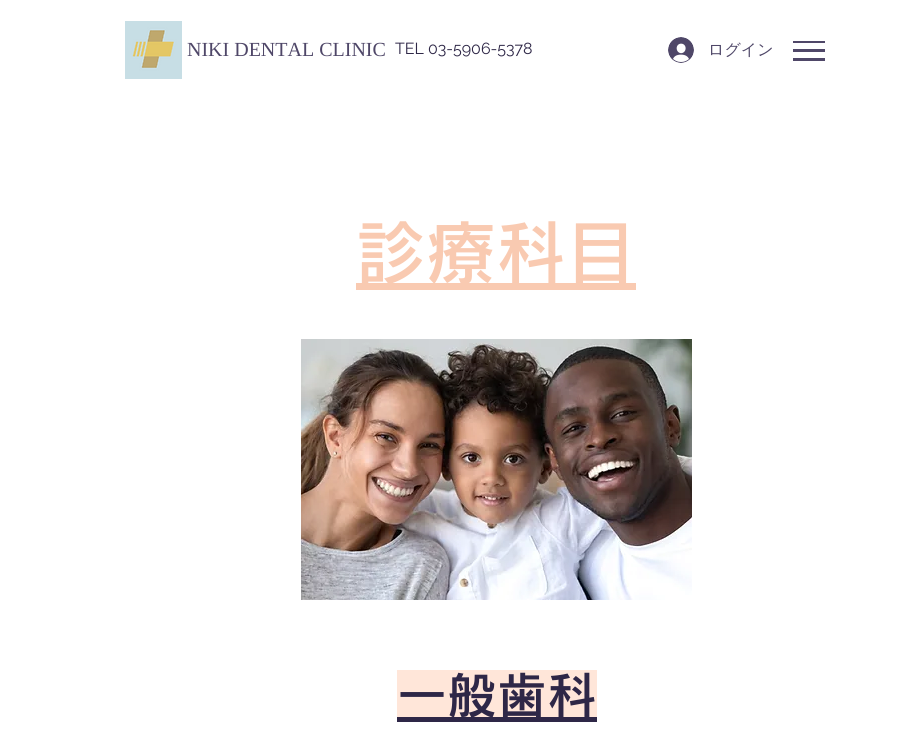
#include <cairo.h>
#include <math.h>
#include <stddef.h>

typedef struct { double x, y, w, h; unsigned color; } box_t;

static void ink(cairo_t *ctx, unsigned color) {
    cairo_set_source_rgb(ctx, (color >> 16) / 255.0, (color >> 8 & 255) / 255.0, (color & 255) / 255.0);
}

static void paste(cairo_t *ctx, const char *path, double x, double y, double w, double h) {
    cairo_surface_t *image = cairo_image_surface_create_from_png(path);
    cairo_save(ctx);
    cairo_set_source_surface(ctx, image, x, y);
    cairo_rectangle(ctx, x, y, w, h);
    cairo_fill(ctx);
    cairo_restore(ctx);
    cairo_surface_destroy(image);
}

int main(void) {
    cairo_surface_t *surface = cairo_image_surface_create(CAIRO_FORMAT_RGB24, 918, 742);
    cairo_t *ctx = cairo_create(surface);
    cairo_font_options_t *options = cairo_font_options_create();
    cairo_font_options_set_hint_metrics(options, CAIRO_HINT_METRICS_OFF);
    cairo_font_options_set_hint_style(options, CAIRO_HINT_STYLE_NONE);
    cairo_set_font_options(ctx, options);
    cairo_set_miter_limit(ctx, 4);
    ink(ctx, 0xFFFFFF);
    cairo_paint(ctx);
    paste(ctx, "media/1.png", 125, 21, 57, 58);
    cairo_select_font_face(ctx, "Liberation Serif", CAIRO_FONT_SLANT_NORMAL, CAIRO_FONT_WEIGHT_NORMAL);
    cairo_set_font_size(ctx, 20);
    ink(ctx, 0x4F4768);
    cairo_move_to(ctx, 187, 56);
    cairo_show_text(ctx, "NIKI DENTAL CLINIC");
    cairo_select_font_face(ctx, "Raleway", CAIRO_FONT_SLANT_NORMAL, CAIRO_FONT_WEIGHT_NORMAL);
    cairo_set_font_size(ctx, 16);
    ink(ctx, 0x2E2747);
    cairo_move_to(ctx, 395, 54);
    cairo_show_text(ctx, "TEL 03-5906-5378");
    paste(ctx, "media/2.png", 668, 37, 26, 26);
    cairo_select_font_face(ctx, "WenQuanYi Zen Hei Medium", CAIRO_FONT_SLANT_NORMAL, CAIRO_FONT_WEIGHT_NORMAL);
    ink(ctx, 0x4F4768);
    cairo_move_to(ctx, 708, 55);
    cairo_show_text(ctx, "ログイン");
    {
        static const box_t items[] = {
            {793, 58, 32, 3, 0x4F4768},
            {793, 41, 32, 2, 0x4F4768},
            {793, 49, 32, 3, 0x4F4768},
            {356, 283, 280, 7, 0xF9CAB1},
        };
        for (size_t i = 0; i < sizeof items / sizeof *items; i++) {
            ink(ctx, items[i].color);
            cairo_rectangle(ctx, items[i].x, items[i].y, items[i].w, items[i].h);
            cairo_fill(ctx);
        }
    }
    cairo_select_font_face(ctx, "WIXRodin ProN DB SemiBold", CAIRO_FONT_SLANT_NORMAL, CAIRO_FONT_WEIGHT_NORMAL);
    cairo_set_font_size(ctx, 70);
    cairo_move_to(ctx, 356, 279);
    cairo_show_text(ctx, "診療科目");
    paste(ctx, "media/3.png", 301, 339, 391, 261);
    ink(ctx, 0xFFE6D9);
    cairo_rectangle(ctx, 397, 670, 200, 47);
    cairo_fill(ctx);
    ink(ctx, 0x2E2747);
    cairo_rectangle(ctx, 397, 717, 200, 5);
    cairo_fill(ctx);
    cairo_set_font_size(ctx, 50);
    cairo_move_to(ctx, 397, 714);
    cairo_show_text(ctx, "一般歯科");
    cairo_surface_write_to_png(surface, "image.png");
    cairo_font_options_destroy(options);
    cairo_destroy(ctx);
    cairo_surface_destroy(surface);
    return 0;
}
